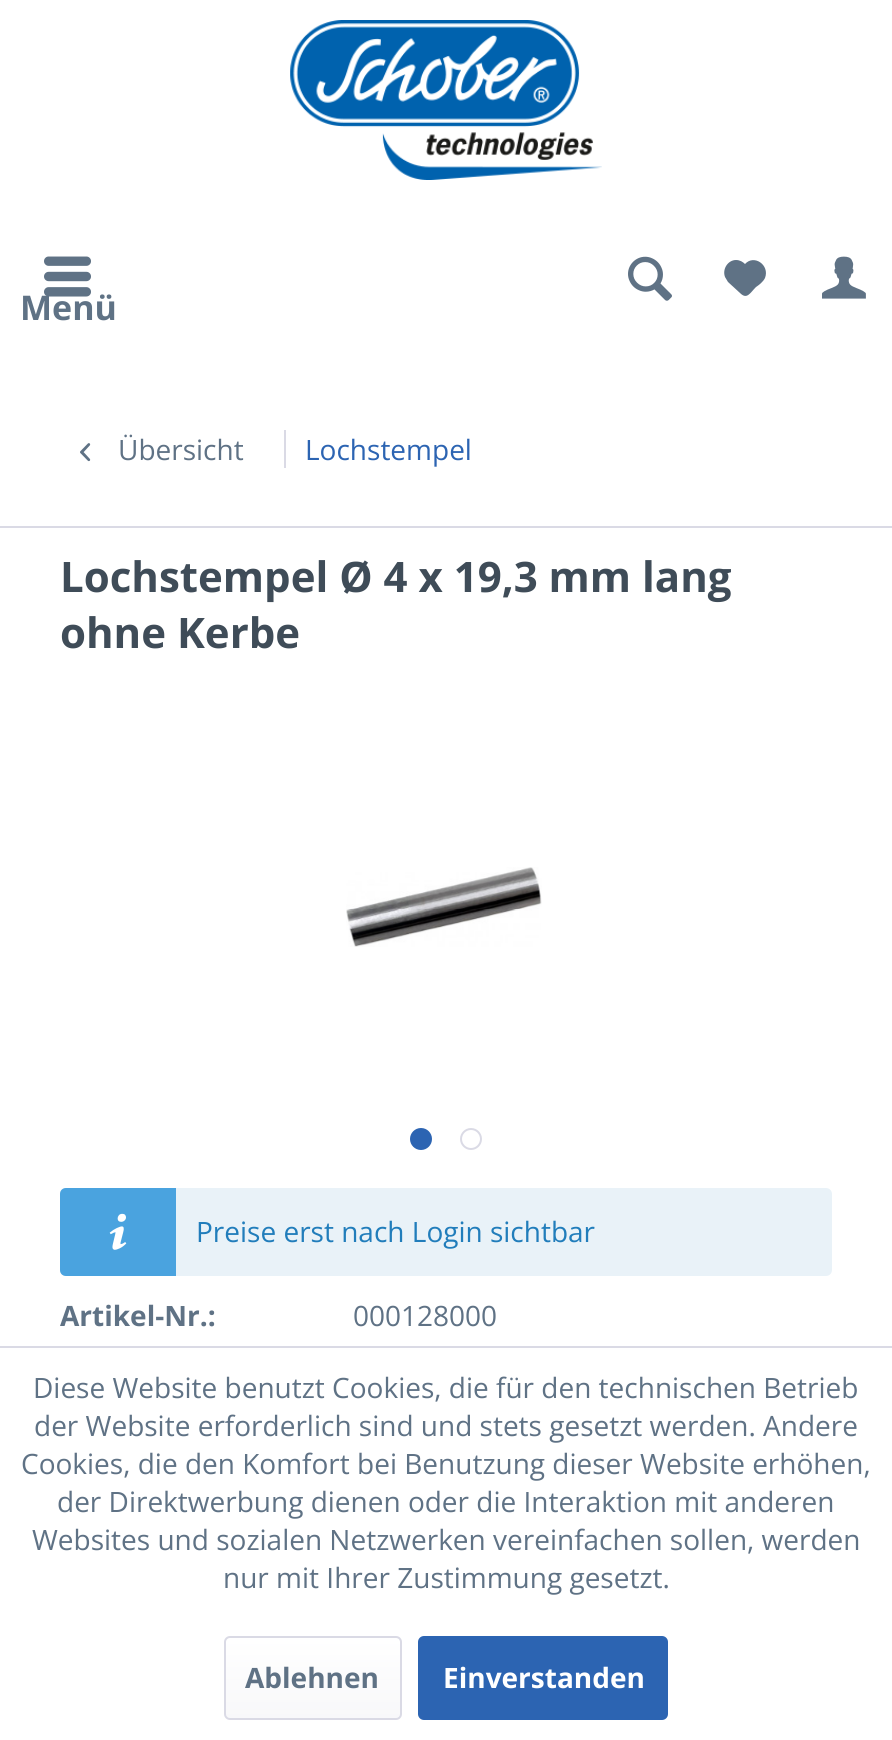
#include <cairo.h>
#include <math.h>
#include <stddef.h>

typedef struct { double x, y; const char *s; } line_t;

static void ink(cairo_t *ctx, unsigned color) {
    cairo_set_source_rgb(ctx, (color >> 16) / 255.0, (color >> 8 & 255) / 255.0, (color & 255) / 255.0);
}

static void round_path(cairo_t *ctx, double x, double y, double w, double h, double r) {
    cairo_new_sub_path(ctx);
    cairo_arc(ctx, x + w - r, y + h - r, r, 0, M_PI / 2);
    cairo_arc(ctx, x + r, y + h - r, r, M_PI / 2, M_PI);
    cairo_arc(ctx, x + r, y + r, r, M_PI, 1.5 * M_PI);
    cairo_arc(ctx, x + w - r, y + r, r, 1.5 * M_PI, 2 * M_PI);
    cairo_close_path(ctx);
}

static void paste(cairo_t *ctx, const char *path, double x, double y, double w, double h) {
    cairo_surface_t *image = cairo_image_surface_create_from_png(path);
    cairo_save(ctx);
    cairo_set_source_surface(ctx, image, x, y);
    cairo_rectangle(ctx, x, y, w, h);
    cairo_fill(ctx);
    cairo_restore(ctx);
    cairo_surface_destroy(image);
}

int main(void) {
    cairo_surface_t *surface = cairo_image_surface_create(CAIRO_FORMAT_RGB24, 892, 1740);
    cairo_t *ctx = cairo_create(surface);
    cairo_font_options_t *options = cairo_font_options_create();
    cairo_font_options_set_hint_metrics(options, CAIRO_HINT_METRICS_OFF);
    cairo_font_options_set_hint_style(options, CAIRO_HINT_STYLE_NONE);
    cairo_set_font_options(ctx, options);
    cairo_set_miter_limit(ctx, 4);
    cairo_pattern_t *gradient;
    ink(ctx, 0xFFFFFF);
    cairo_paint(ctx);
    paste(ctx, "media/1.png", 290, 20, 312, 160);
    paste(ctx, "media/2.png", 628, 256, 44, 45);
    ink(ctx, 0x5F7285);
    cairo_new_path(ctx);
    cairo_move_to(ctx, 736, 260);
    cairo_curve_to(ctx, 728, 260, 722, 269, 725, 277);
    cairo_line_to(ctx, 728, 282);
    cairo_line_to(ctx, 740, 293);
    cairo_curve_to(ctx, 747, 300, 750, 293, 756, 287);
    cairo_curve_to(ctx, 759, 285, 763, 282, 765, 278);
    cairo_curve_to(ctx, 770, 265, 754, 254, 745, 264);
    cairo_curve_to(ctx, 743, 262, 740, 260, 736, 260);
    cairo_close_path(ctx);
    cairo_fill(ctx);
    paste(ctx, "media/3.png", 822, 256, 44, 43);
    paste(ctx, "media/4.png", 44, 256, 47, 41);
    cairo_select_font_face(ctx, "Open Sans", CAIRO_FONT_SLANT_NORMAL, CAIRO_FONT_WEIGHT_BOLD);
    cairo_set_font_size(ctx, 34);
    cairo_move_to(ctx, 20, 320);
    cairo_show_text(ctx, "Menü");
    ink(ctx, 0xDADAE5);
    cairo_rectangle(ctx, 0, 526, 892, 2);
    cairo_fill(ctx);
    paste(ctx, "media/5.png", 80, 443, 11, 19);
    cairo_select_font_face(ctx, "Open Sans", CAIRO_FONT_SLANT_NORMAL, CAIRO_FONT_WEIGHT_NORMAL);
    cairo_set_font_size(ctx, 28);
    ink(ctx, 0x5F7285);
    cairo_move_to(ctx, 118, 460);
    cairo_show_text(ctx, "Übersicht");
    ink(ctx, 0xDADAE5);
    cairo_rectangle(ctx, 284, 430, 2, 38);
    cairo_fill(ctx);
    ink(ctx, 0x2C64B2);
    cairo_move_to(ctx, 305, 460);
    cairo_show_text(ctx, "Lochstempel");
    cairo_select_font_face(ctx, "Open Sans", CAIRO_FONT_SLANT_NORMAL, CAIRO_FONT_WEIGHT_BOLD);
    cairo_set_font_size(ctx, 42);
    ink(ctx, 0x3F4C58);
    cairo_move_to(ctx, 60, 592);
    cairo_show_text(ctx, "Lochstempel Ø 4 x 19,3 mm lang");
    cairo_move_to(ctx, 60, 648);
    cairo_show_text(ctx, "ohne Kerbe");
    paste(ctx, "media/6.png", 346, 867, 196, 80);
    ink(ctx, 0x2C64B2);
    cairo_arc(ctx, 421, 1139, 10, 0, 2 * M_PI);
    cairo_fill_preserve(ctx);
    cairo_stroke(ctx);
    cairo_arc(ctx, 471, 1139, 10, 0, 2 * M_PI);
    ink(ctx, 0xDADAE5);
    cairo_stroke(ctx);
    ink(ctx, 0xE9F2F8);
    round_path(ctx, 60, 1188, 772, 88, 6);
    cairo_fill(ctx);
    ink(ctx, 0x4AA3DF);
    cairo_new_path(ctx);
    cairo_move_to(ctx, 66, 1188);
    cairo_line_to(ctx, 176, 1188);
    cairo_line_to(ctx, 176, 1276);
    cairo_line_to(ctx, 66, 1276);
    cairo_curve_to(ctx, 62.5, 1276, 60, 1273.5, 60, 1270);
    cairo_line_to(ctx, 60, 1194);
    cairo_curve_to(ctx, 60, 1190.5, 62.5, 1188, 66, 1188);
    cairo_close_path(ctx);
    cairo_fill(ctx);
    paste(ctx, "media/7.png", 109, 1213, 18, 37);
    cairo_select_font_face(ctx, "Open Sans", CAIRO_FONT_SLANT_NORMAL, CAIRO_FONT_WEIGHT_NORMAL);
    cairo_set_font_size(ctx, 28);
    ink(ctx, 0x217DBB);
    cairo_move_to(ctx, 196, 1242);
    cairo_show_text(ctx, "Preise erst nach Login sichtbar");
    cairo_select_font_face(ctx, "Open Sans", CAIRO_FONT_SLANT_NORMAL, CAIRO_FONT_WEIGHT_BOLD);
    ink(ctx, 0x5F7285);
    cairo_move_to(ctx, 60, 1326);
    cairo_show_text(ctx, "Artikel-Nr.:");
    cairo_select_font_face(ctx, "Open Sans", CAIRO_FONT_SLANT_NORMAL, CAIRO_FONT_WEIGHT_NORMAL);
    cairo_move_to(ctx, 353, 1326);
    cairo_show_text(ctx, "000128000");
    ink(ctx, 0xDADAE5);
    cairo_rectangle(ctx, 0, 1346, 892, 2);
    cairo_fill(ctx);
    ink(ctx, 0x5F7285);
    {
        static const line_t items[] = {
            {33, 1398, "Diese Website benutzt Cookies, die für den technischen Betrieb"},
            {34, 1436, "der Website erforderlich sind und stets gesetzt werden. Andere"},
            {21, 1474, "Cookies, die den Komfort bei Benutzung dieser Website erhöhen,"},
            {57, 1512, "der Direktwerbung dienen oder die Interaktion mit anderen"},
            {32, 1550, "Websites und sozialen Netzwerken vereinfachen sollen, werden"},
            {223, 1588, "nur mit Ihrer Zustimmung gesetzt."},
        };
        for (size_t i = 0; i < sizeof items / sizeof *items; i++) {
            cairo_move_to(ctx, items[i].x, items[i].y);
            cairo_show_text(ctx, items[i].s);
        }
    }
    gradient = cairo_pattern_create_linear(313, 1638, 313, 1718);
    cairo_pattern_add_color_stop_rgba(gradient, 0, 1, 1, 1, 1);
    cairo_pattern_add_color_stop_rgba(gradient, 1, 0.973, 0.973, 0.98, 1);
    cairo_set_source(ctx, gradient);
    cairo_pattern_destroy(gradient);
    round_path(ctx, 226, 1638, 174, 80, 4);
    cairo_fill(ctx);
    round_path(ctx, 225, 1637, 176, 82, 5);
    ink(ctx, 0xDADAE5);
    cairo_stroke(ctx);
    cairo_select_font_face(ctx, "Open Sans", CAIRO_FONT_SLANT_NORMAL, CAIRO_FONT_WEIGHT_BOLD);
    ink(ctx, 0x5F7285);
    cairo_move_to(ctx, 245, 1688);
    cairo_show_text(ctx, "Ablehnen");
    ink(ctx, 0x2C64B2);
    round_path(ctx, 418, 1636, 250, 84, 6);
    cairo_fill(ctx);
    ink(ctx, 0xFFFFFF);
    cairo_move_to(ctx, 443, 1688);
    cairo_show_text(ctx, "Einverstanden");
    cairo_surface_write_to_png(surface, "image.png");
    cairo_font_options_destroy(options);
    cairo_destroy(ctx);
    cairo_surface_destroy(surface);
    return 0;
}
